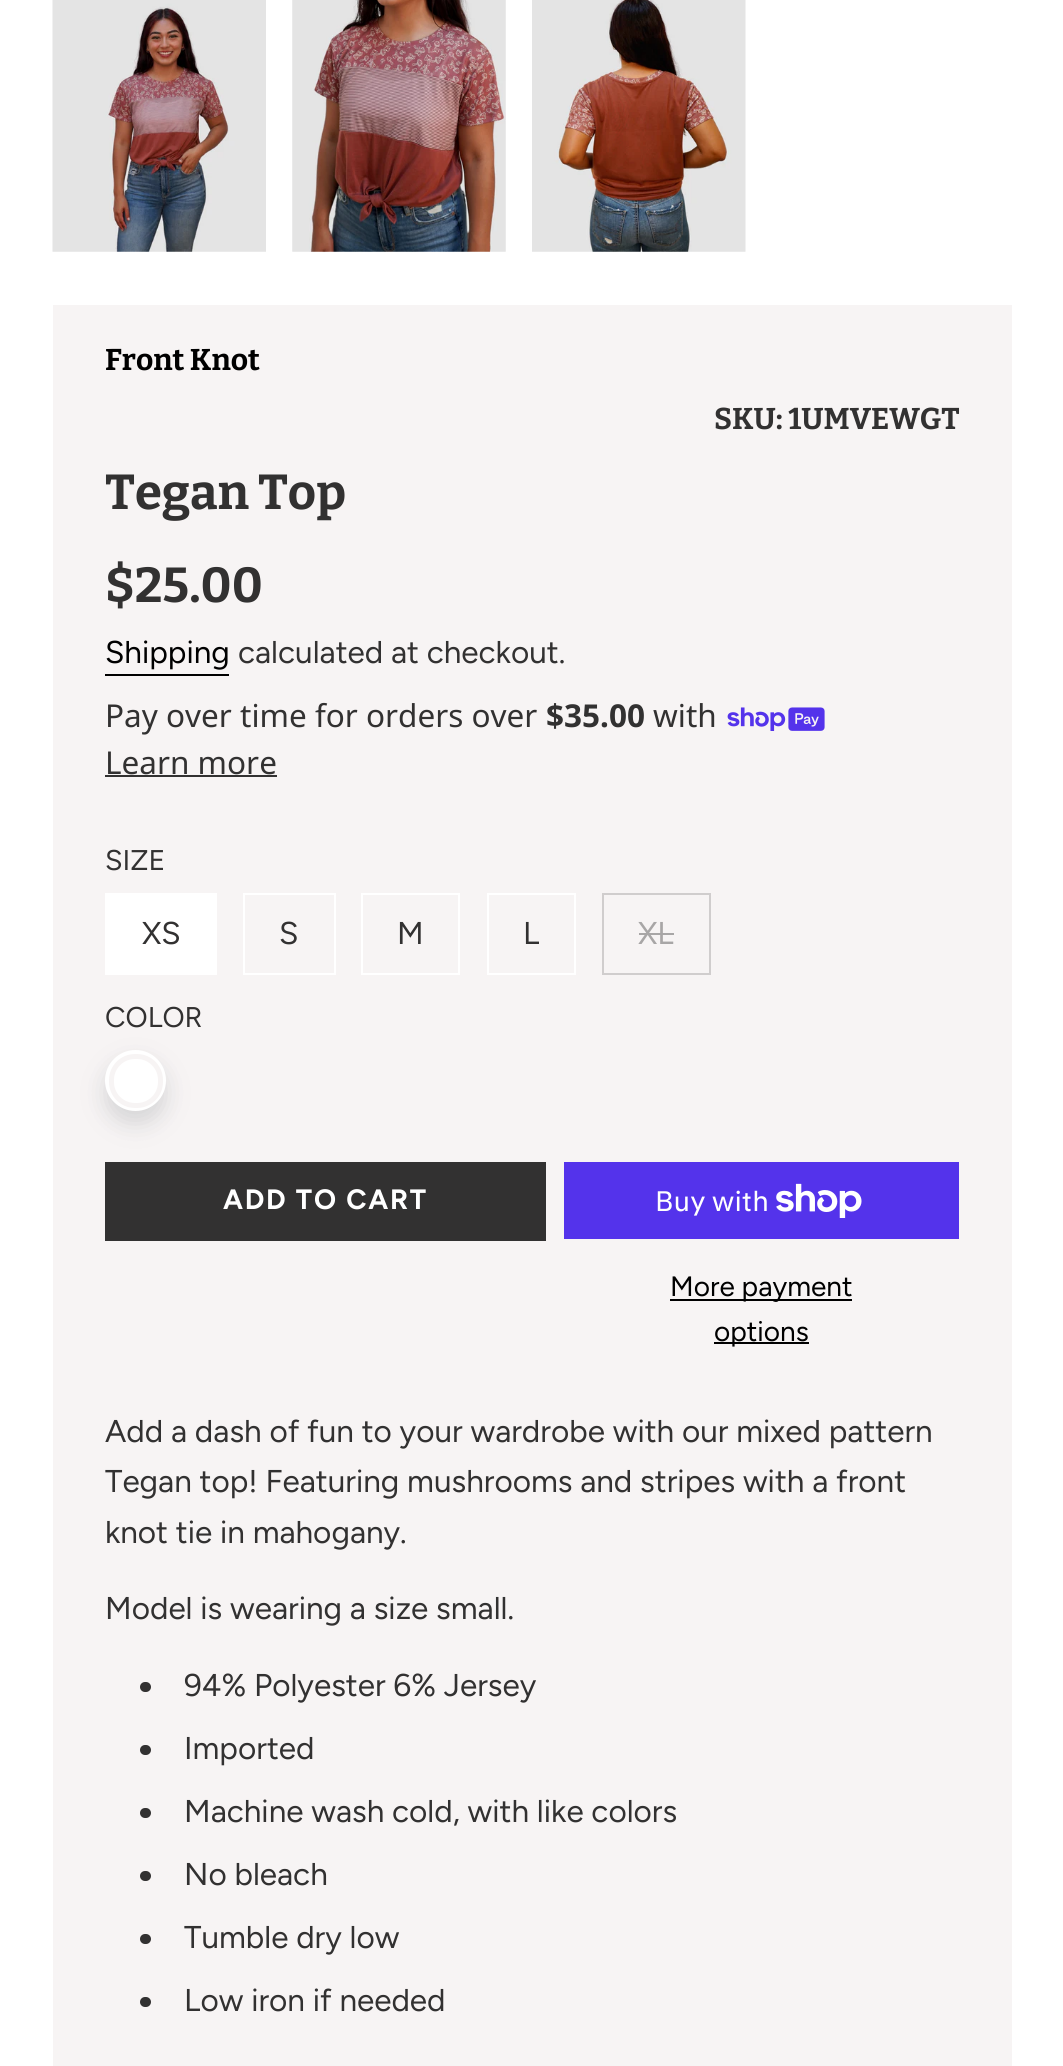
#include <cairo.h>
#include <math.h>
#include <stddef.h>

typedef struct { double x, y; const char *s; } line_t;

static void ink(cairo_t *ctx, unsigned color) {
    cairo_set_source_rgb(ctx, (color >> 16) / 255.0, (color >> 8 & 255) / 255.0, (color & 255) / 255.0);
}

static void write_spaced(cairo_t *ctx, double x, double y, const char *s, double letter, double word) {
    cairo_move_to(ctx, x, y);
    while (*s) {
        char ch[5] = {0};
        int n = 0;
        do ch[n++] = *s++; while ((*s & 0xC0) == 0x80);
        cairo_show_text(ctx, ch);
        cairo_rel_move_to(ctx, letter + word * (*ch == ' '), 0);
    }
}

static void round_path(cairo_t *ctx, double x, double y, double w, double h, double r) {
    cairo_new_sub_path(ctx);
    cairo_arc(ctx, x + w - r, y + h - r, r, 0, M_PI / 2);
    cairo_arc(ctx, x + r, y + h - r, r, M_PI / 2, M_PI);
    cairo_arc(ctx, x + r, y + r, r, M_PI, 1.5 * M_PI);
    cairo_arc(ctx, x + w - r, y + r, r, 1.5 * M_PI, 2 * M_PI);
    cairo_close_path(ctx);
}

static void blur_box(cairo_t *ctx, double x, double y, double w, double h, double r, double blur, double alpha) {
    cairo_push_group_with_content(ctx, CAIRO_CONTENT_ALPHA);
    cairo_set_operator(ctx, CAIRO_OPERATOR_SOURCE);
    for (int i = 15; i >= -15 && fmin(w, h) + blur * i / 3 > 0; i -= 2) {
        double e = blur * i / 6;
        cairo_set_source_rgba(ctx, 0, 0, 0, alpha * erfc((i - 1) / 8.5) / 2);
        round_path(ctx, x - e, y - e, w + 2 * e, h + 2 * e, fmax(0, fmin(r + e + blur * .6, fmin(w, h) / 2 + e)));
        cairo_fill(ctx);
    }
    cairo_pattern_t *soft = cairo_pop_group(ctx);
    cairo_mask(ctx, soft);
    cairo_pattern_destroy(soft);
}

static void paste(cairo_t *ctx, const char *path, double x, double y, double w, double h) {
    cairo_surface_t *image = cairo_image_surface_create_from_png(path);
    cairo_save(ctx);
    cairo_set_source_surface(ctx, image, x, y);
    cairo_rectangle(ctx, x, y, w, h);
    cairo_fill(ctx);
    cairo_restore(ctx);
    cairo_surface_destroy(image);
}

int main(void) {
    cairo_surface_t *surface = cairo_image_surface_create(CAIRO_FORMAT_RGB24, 1063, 2066);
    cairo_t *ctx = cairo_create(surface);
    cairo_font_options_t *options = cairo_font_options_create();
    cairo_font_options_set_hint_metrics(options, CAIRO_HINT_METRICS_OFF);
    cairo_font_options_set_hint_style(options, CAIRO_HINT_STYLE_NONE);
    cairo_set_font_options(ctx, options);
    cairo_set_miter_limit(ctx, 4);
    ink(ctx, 0xFFFFFF);
    cairo_paint(ctx);
    paste(ctx, "media/1.png", 52, 0, 214, 252);
    paste(ctx, "media/2.png", 292, 0, 214, 252);
    paste(ctx, "media/3.png", 532, 0, 214, 252);
    ink(ctx, 0xF7F4F4);
    cairo_rectangle(ctx, 53, 305, 959, 1761);
    cairo_fill(ctx);
    cairo_select_font_face(ctx, "Bitter", CAIRO_FONT_SLANT_NORMAL, CAIRO_FONT_WEIGHT_BOLD);
    cairo_set_font_size(ctx, 30);
    ink(ctx, 0x000000);
    cairo_move_to(ctx, 105, 370);
    cairo_show_text(ctx, "Front Knot");
    ink(ctx, 0x323131);
    cairo_move_to(ctx, 714, 429);
    cairo_show_text(ctx, "SKU: 1UMVEWGT");
    cairo_set_font_size(ctx, 49);
    cairo_move_to(ctx, 105, 509);
    cairo_show_text(ctx, "Tegan Top");
    cairo_move_to(ctx, 105, 602);
    cairo_show_text(ctx, "$25.00");
    cairo_select_font_face(ctx, "Figtree", CAIRO_FONT_SLANT_NORMAL, CAIRO_FONT_WEIGHT_NORMAL);
    cairo_set_font_size(ctx, 31.5);
    ink(ctx, 0x000000);
    cairo_move_to(ctx, 105, 663);
    cairo_show_text(ctx, "Shipping");
    cairo_rectangle(ctx, 105, 674, 124, 2);
    cairo_fill(ctx);
    ink(ctx, 0x323131);
    cairo_move_to(ctx, 238, 663);
    cairo_show_text(ctx, "calculated at checkout.");
    cairo_select_font_face(ctx, "Noto Sans", CAIRO_FONT_SLANT_NORMAL, CAIRO_FONT_WEIGHT_NORMAL);
    cairo_move_to(ctx, 105, 727);
    cairo_show_text(ctx, "Pay over time for orders over");
    cairo_select_font_face(ctx, "Noto Sans", CAIRO_FONT_SLANT_NORMAL, CAIRO_FONT_WEIGHT_BOLD);
    cairo_move_to(ctx, 546, 727);
    cairo_show_text(ctx, "$35.00");
    cairo_select_font_face(ctx, "Noto Sans", CAIRO_FONT_SLANT_NORMAL, CAIRO_FONT_WEIGHT_NORMAL);
    cairo_move_to(ctx, 653, 727);
    cairo_show_text(ctx, "with");
    paste(ctx, "media/4.png", 727, 707, 98, 24);
    cairo_move_to(ctx, 105, 774);
    cairo_show_text(ctx, "Learn more");
    cairo_rectangle(ctx, 105, 775, 172, 2);
    cairo_fill(ctx);
    cairo_select_font_face(ctx, "Figtree", CAIRO_FONT_SLANT_NORMAL, CAIRO_FONT_WEIGHT_NORMAL);
    cairo_set_font_size(ctx, 28.5);
    cairo_move_to(ctx, 105, 870);
    cairo_show_text(ctx, "SIZE");
    ink(ctx, 0xFFFFFF);
    cairo_rectangle(ctx, 105, 893, 112, 82);
    cairo_fill(ctx);
    cairo_set_font_size(ctx, 31.5);
    ink(ctx, 0x323131);
    cairo_move_to(ctx, 142, 944);
    cairo_show_text(ctx, "XS");
    cairo_rectangle(ctx, 244, 894, 91, 80);
    ink(ctx, 0xFFFFFF);
    cairo_stroke(ctx);
    ink(ctx, 0x323131);
    cairo_move_to(ctx, 279, 944);
    cairo_show_text(ctx, "S");
    cairo_rectangle(ctx, 362, 894, 97, 80);
    ink(ctx, 0xFFFFFF);
    cairo_stroke(ctx);
    ink(ctx, 0x323131);
    cairo_move_to(ctx, 397, 944);
    cairo_show_text(ctx, "M");
    cairo_rectangle(ctx, 488, 894, 87, 80);
    ink(ctx, 0xFFFFFF);
    cairo_stroke(ctx);
    ink(ctx, 0x323131);
    cairo_move_to(ctx, 523, 944);
    cairo_show_text(ctx, "L");
    cairo_rectangle(ctx, 603, 894, 107, 80);
    ink(ctx, 0xD0CDCD);
    cairo_stroke(ctx);
    ink(ctx, 0xA8A6A6);
    cairo_move_to(ctx, 638, 944);
    cairo_show_text(ctx, "XL");
    cairo_rectangle(ctx, 639, 933, 35, 2);
    cairo_fill(ctx);
    cairo_set_font_size(ctx, 28.5);
    ink(ctx, 0x323131);
    cairo_move_to(ctx, 105, 1027);
    cairo_show_text(ctx, "COLOR");
    ink(ctx, 0x565F66);
    blur_box(ctx, 105, 1062, 61, 62, 30.5, 11.5, 0.2);
    ink(ctx, 0xFFFFFF);
    cairo_arc(ctx, 135.5, 1080.5, 28.5, 0, 2 * M_PI);
    cairo_fill_preserve(ctx);
    cairo_set_line_width(ctx, 4);
    cairo_stroke(ctx);
    round_path(ctx, 111.5, 1056.5, 49, 49, 23.5);
    ink(ctx, 0xF7F4F4);
    cairo_set_line_width(ctx, 5);
    cairo_stroke(ctx);
    ink(ctx, 0x323131);
    cairo_rectangle(ctx, 105, 1162, 441, 79);
    cairo_fill(ctx);
    cairo_select_font_face(ctx, "Figtree", CAIRO_FONT_SLANT_NORMAL, CAIRO_FONT_WEIGHT_BOLD);
    cairo_set_font_size(ctx, 28);
    ink(ctx, 0xFFFFFF);
    write_spaced(ctx, 223, 1209, "ADD TO CART", 1.75, 0);
    ink(ctx, 0x5433EB);
    cairo_rectangle(ctx, 564, 1162, 395, 77);
    cairo_fill(ctx);
    cairo_select_font_face(ctx, "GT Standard", CAIRO_FONT_SLANT_NORMAL, CAIRO_FONT_WEIGHT_NORMAL);
    ink(ctx, 0xFFFFFF);
    cairo_move_to(ctx, 655, 1211);
    cairo_show_text(ctx, "Buy with");
    paste(ctx, "media/5.png", 776, 1183, 86, 35);
    ink(ctx, 0x000000);
    cairo_rectangle(ctx, 670, 1299, 182, 2);
    cairo_fill(ctx);
    cairo_select_font_face(ctx, "Figtree", CAIRO_FONT_SLANT_NORMAL, CAIRO_FONT_WEIGHT_NORMAL);
    cairo_move_to(ctx, 670, 1296);
    cairo_show_text(ctx, "More payment");
    cairo_rectangle(ctx, 714, 1342, 95, 2);
    cairo_fill(ctx);
    cairo_move_to(ctx, 714, 1341);
    cairo_show_text(ctx, "options");
    cairo_set_font_size(ctx, 31.5);
    ink(ctx, 0x323131);
    {
        static const line_t items[] = {
            {105, 1442, "Add a dash of fun to your wardrobe with our mixed pattern"},
            {105, 1492, "Tegan top! Featuring mushrooms and stripes with a front"},
            {105, 1543, "knot tie in mahogany."},
            {105, 1619, "Model is wearing a size small."},
        };
        for (size_t i = 0; i < sizeof items / sizeof *items; i++) {
            cairo_move_to(ctx, items[i].x, items[i].y);
            cairo_show_text(ctx, items[i].s);
        }
    }
    round_path(ctx, 140, 1682, 11, 10, 5);
    cairo_fill(ctx);
    cairo_move_to(ctx, 184, 1696);
    cairo_show_text(ctx, "94% Polyester 6% Jersey");
    round_path(ctx, 140, 1745, 11, 10, 5);
    cairo_fill(ctx);
    cairo_move_to(ctx, 184, 1759);
    cairo_show_text(ctx, "Imported");
    round_path(ctx, 140, 1808, 11, 10, 5);
    cairo_fill(ctx);
    cairo_move_to(ctx, 184, 1822);
    cairo_show_text(ctx, "Machine wash cold, with like colors");
    round_path(ctx, 140, 1871, 11, 10, 5);
    cairo_fill(ctx);
    cairo_move_to(ctx, 184, 1885);
    cairo_show_text(ctx, "No bleach");
    round_path(ctx, 140, 1934, 11, 10, 5);
    cairo_fill(ctx);
    cairo_move_to(ctx, 184, 1948);
    cairo_show_text(ctx, "Tumble dry low");
    round_path(ctx, 140, 1997, 11, 10, 5);
    cairo_fill(ctx);
    cairo_move_to(ctx, 184, 2011);
    cairo_show_text(ctx, "Low iron if needed");
    cairo_surface_write_to_png(surface, "image.png");
    cairo_font_options_destroy(options);
    cairo_destroy(ctx);
    cairo_surface_destroy(surface);
    return 0;
}
